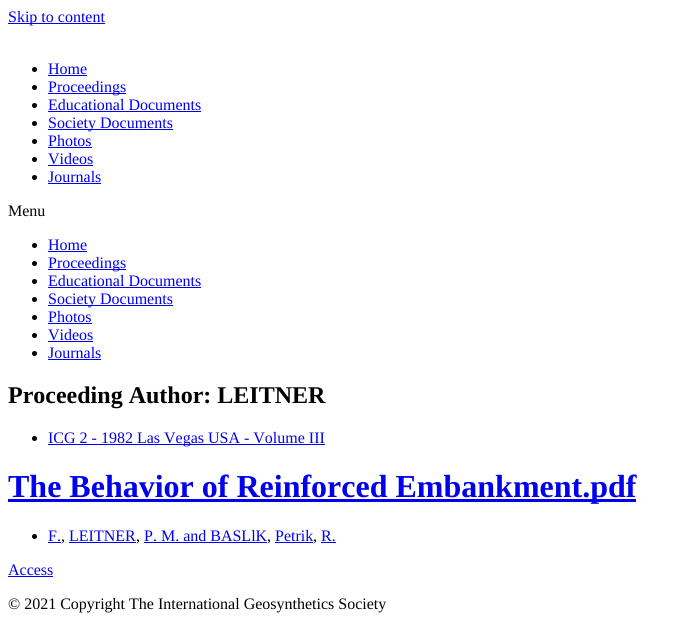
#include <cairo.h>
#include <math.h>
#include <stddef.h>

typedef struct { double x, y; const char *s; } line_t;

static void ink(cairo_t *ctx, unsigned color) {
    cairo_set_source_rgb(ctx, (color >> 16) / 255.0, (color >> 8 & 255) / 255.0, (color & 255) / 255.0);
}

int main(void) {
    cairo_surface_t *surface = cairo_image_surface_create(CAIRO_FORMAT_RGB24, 694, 628);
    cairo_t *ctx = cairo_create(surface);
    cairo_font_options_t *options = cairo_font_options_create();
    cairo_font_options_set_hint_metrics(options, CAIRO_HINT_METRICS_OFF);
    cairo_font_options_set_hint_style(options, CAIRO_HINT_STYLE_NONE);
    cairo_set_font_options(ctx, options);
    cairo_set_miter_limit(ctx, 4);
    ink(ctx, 0xFFFFFF);
    cairo_paint(ctx);
    ink(ctx, 0x0000EE);
    cairo_rectangle(ctx, 8, 23, 97, 1);
    cairo_fill(ctx);
    cairo_select_font_face(ctx, "Liberation Serif", CAIRO_FONT_SLANT_NORMAL, CAIRO_FONT_WEIGHT_NORMAL);
    cairo_set_font_size(ctx, 16);
    cairo_move_to(ctx, 8, 22);
    cairo_show_text(ctx, "Skip to content");
    ink(ctx, 0x000000);
    cairo_new_path(ctx);
    cairo_arc(ctx, 34.5, 69.5, 2.5, 0, 2 * M_PI);
    cairo_fill(ctx);
    ink(ctx, 0x0000EE);
    cairo_move_to(ctx, 48, 74);
    cairo_show_text(ctx, "Home");
    cairo_rectangle(ctx, 48, 75, 39, 1);
    cairo_fill(ctx);
    ink(ctx, 0x000000);
    cairo_arc(ctx, 34.5, 87.5, 2.5, 0, 2 * M_PI);
    cairo_fill(ctx);
    ink(ctx, 0x0000EE);
    cairo_rectangle(ctx, 48, 93, 78, 1);
    cairo_fill(ctx);
    cairo_move_to(ctx, 48, 92);
    cairo_show_text(ctx, "Proceedings");
    ink(ctx, 0x000000);
    cairo_new_path(ctx);
    cairo_arc(ctx, 34.5, 105.5, 2.5, 0, 2 * M_PI);
    cairo_fill(ctx);
    ink(ctx, 0x0000EE);
    cairo_move_to(ctx, 48, 110);
    cairo_show_text(ctx, "Educational Documents");
    cairo_rectangle(ctx, 48, 111, 153, 1);
    cairo_fill(ctx);
    ink(ctx, 0x000000);
    cairo_arc(ctx, 34.5, 123.5, 2.5, 0, 2 * M_PI);
    cairo_fill(ctx);
    ink(ctx, 0x0000EE);
    cairo_rectangle(ctx, 48, 129, 125, 1);
    cairo_fill(ctx);
    cairo_move_to(ctx, 48, 128);
    cairo_show_text(ctx, "Society Documents");
    ink(ctx, 0x000000);
    cairo_new_path(ctx);
    cairo_arc(ctx, 34.5, 141.5, 2.5, 0, 2 * M_PI);
    cairo_fill(ctx);
    ink(ctx, 0x0000EE);
    cairo_move_to(ctx, 48, 146);
    cairo_show_text(ctx, "Photos");
    cairo_rectangle(ctx, 48, 147, 44, 1);
    cairo_fill(ctx);
    ink(ctx, 0x000000);
    cairo_arc(ctx, 34.5, 159.5, 2.5, 0, 2 * M_PI);
    cairo_fill(ctx);
    ink(ctx, 0x0000EE);
    cairo_move_to(ctx, 48, 164);
    cairo_show_text(ctx, "Videos");
    cairo_rectangle(ctx, 48, 165, 45, 1);
    cairo_fill(ctx);
    ink(ctx, 0x000000);
    cairo_arc(ctx, 34.5, 177.5, 2.5, 0, 2 * M_PI);
    cairo_fill(ctx);
    ink(ctx, 0x0000EE);
    cairo_move_to(ctx, 48, 182);
    cairo_show_text(ctx, "Journals");
    cairo_rectangle(ctx, 48, 183, 53, 1);
    cairo_fill(ctx);
    ink(ctx, 0x000000);
    cairo_move_to(ctx, 8, 216);
    cairo_show_text(ctx, "Menu");
    cairo_new_path(ctx);
    cairo_arc(ctx, 34.5, 245.5, 2.5, 0, 2 * M_PI);
    cairo_fill(ctx);
    ink(ctx, 0x0000EE);
    cairo_move_to(ctx, 48, 250);
    cairo_show_text(ctx, "Home");
    cairo_rectangle(ctx, 48, 251, 39, 1);
    cairo_fill(ctx);
    ink(ctx, 0x000000);
    cairo_arc(ctx, 34.5, 263.5, 2.5, 0, 2 * M_PI);
    cairo_fill(ctx);
    ink(ctx, 0x0000EE);
    cairo_rectangle(ctx, 48, 269, 78, 1);
    cairo_fill(ctx);
    cairo_move_to(ctx, 48, 268);
    cairo_show_text(ctx, "Proceedings");
    ink(ctx, 0x000000);
    cairo_new_path(ctx);
    cairo_arc(ctx, 34.5, 281.5, 2.5, 0, 2 * M_PI);
    cairo_fill(ctx);
    ink(ctx, 0x0000EE);
    cairo_move_to(ctx, 48, 286);
    cairo_show_text(ctx, "Educational Documents");
    cairo_rectangle(ctx, 48, 287, 153, 1);
    cairo_fill(ctx);
    ink(ctx, 0x000000);
    cairo_arc(ctx, 34.5, 299.5, 2.5, 0, 2 * M_PI);
    cairo_fill(ctx);
    ink(ctx, 0x0000EE);
    cairo_rectangle(ctx, 48, 305, 125, 1);
    cairo_fill(ctx);
    cairo_move_to(ctx, 48, 304);
    cairo_show_text(ctx, "Society Documents");
    ink(ctx, 0x000000);
    cairo_new_path(ctx);
    cairo_arc(ctx, 34.5, 317.5, 2.5, 0, 2 * M_PI);
    cairo_fill(ctx);
    ink(ctx, 0x0000EE);
    cairo_move_to(ctx, 48, 322);
    cairo_show_text(ctx, "Photos");
    cairo_rectangle(ctx, 48, 323, 44, 1);
    cairo_fill(ctx);
    ink(ctx, 0x000000);
    cairo_arc(ctx, 34.5, 335.5, 2.5, 0, 2 * M_PI);
    cairo_fill(ctx);
    ink(ctx, 0x0000EE);
    cairo_move_to(ctx, 48, 340);
    cairo_show_text(ctx, "Videos");
    cairo_rectangle(ctx, 48, 341, 45, 1);
    cairo_fill(ctx);
    ink(ctx, 0x000000);
    cairo_arc(ctx, 34.5, 353.5, 2.5, 0, 2 * M_PI);
    cairo_fill(ctx);
    ink(ctx, 0x0000EE);
    cairo_move_to(ctx, 48, 358);
    cairo_show_text(ctx, "Journals");
    cairo_rectangle(ctx, 48, 359, 53, 1);
    cairo_fill(ctx);
    cairo_select_font_face(ctx, "Liberation Serif", CAIRO_FONT_SLANT_NORMAL, CAIRO_FONT_WEIGHT_BOLD);
    cairo_set_font_size(ctx, 24);
    ink(ctx, 0x000000);
    cairo_move_to(ctx, 8, 403);
    cairo_show_text(ctx, "Proceeding Author: LEITNER");
    cairo_new_path(ctx);
    cairo_arc(ctx, 34.5, 438.5, 2.5, 0, 2 * M_PI);
    cairo_fill(ctx);
    ink(ctx, 0x0000EE);
    cairo_rectangle(ctx, 48, 444, 277, 1);
    cairo_fill(ctx);
    cairo_select_font_face(ctx, "Liberation Serif", CAIRO_FONT_SLANT_NORMAL, CAIRO_FONT_WEIGHT_NORMAL);
    cairo_set_font_size(ctx, 16);
    cairo_move_to(ctx, 48, 443);
    cairo_show_text(ctx, "ICG 2 - 1982 Las Vegas USA - Volume III");
    cairo_rectangle(ctx, 8, 499, 628, 3);
    cairo_fill(ctx);
    cairo_select_font_face(ctx, "Liberation Serif", CAIRO_FONT_SLANT_NORMAL, CAIRO_FONT_WEIGHT_BOLD);
    cairo_set_font_size(ctx, 32);
    cairo_move_to(ctx, 8, 497);
    cairo_show_text(ctx, "The Behavior of Reinforced Embankment.pdf");
    ink(ctx, 0x000000);
    cairo_new_path(ctx);
    cairo_arc(ctx, 34.5, 536.5, 2.5, 0, 2 * M_PI);
    cairo_fill(ctx);
    cairo_select_font_face(ctx, "Liberation Serif", CAIRO_FONT_SLANT_NORMAL, CAIRO_FONT_WEIGHT_NORMAL);
    cairo_set_font_size(ctx, 16);
    ink(ctx, 0x0000EE);
    {
        static const line_t items[] = {
            {48, 541, "F."},
            {69, 541, "LEITNER"},
            {144, 541, "P. M. and BASLlK"},
            {275, 541, "Petrik"},
            {321, 541, "R."},
        };
        for (size_t i = 0; i < sizeof items / sizeof *items; i++) {
            cairo_move_to(ctx, items[i].x, items[i].y);
            cairo_show_text(ctx, items[i].s);
        }
    }
    ink(ctx, 0x000000);
    cairo_move_to(ctx, 61, 541);
    cairo_show_text(ctx, ",");
    ink(ctx, 0x0000EE);
    cairo_rectangle(ctx, 48, 542, 13, 1);
    cairo_fill(ctx);
    ink(ctx, 0x000000);
    cairo_move_to(ctx, 136, 541);
    cairo_show_text(ctx, ",");
    ink(ctx, 0x0000EE);
    cairo_rectangle(ctx, 69, 542, 67, 1);
    cairo_fill(ctx);
    ink(ctx, 0x000000);
    cairo_move_to(ctx, 267, 541);
    cairo_show_text(ctx, ",");
    ink(ctx, 0x0000EE);
    cairo_rectangle(ctx, 144, 542, 123, 1);
    cairo_fill(ctx);
    ink(ctx, 0x000000);
    cairo_move_to(ctx, 313, 541);
    cairo_show_text(ctx, ",");
    ink(ctx, 0x0000EE);
    cairo_rectangle(ctx, 275, 542, 38, 1);
    cairo_fill(ctx);
    cairo_rectangle(ctx, 321, 542, 15, 1);
    cairo_fill(ctx);
    cairo_move_to(ctx, 8, 575);
    cairo_show_text(ctx, "Access");
    cairo_rectangle(ctx, 8, 576, 45, 1);
    cairo_fill(ctx);
    ink(ctx, 0x000000);
    cairo_move_to(ctx, 8, 609);
    cairo_show_text(ctx, "© 2021 Copyright The International Geosynthetics Society");
    cairo_surface_write_to_png(surface, "image.png");
    cairo_font_options_destroy(options);
    cairo_destroy(ctx);
    cairo_surface_destroy(surface);
    return 0;
}
